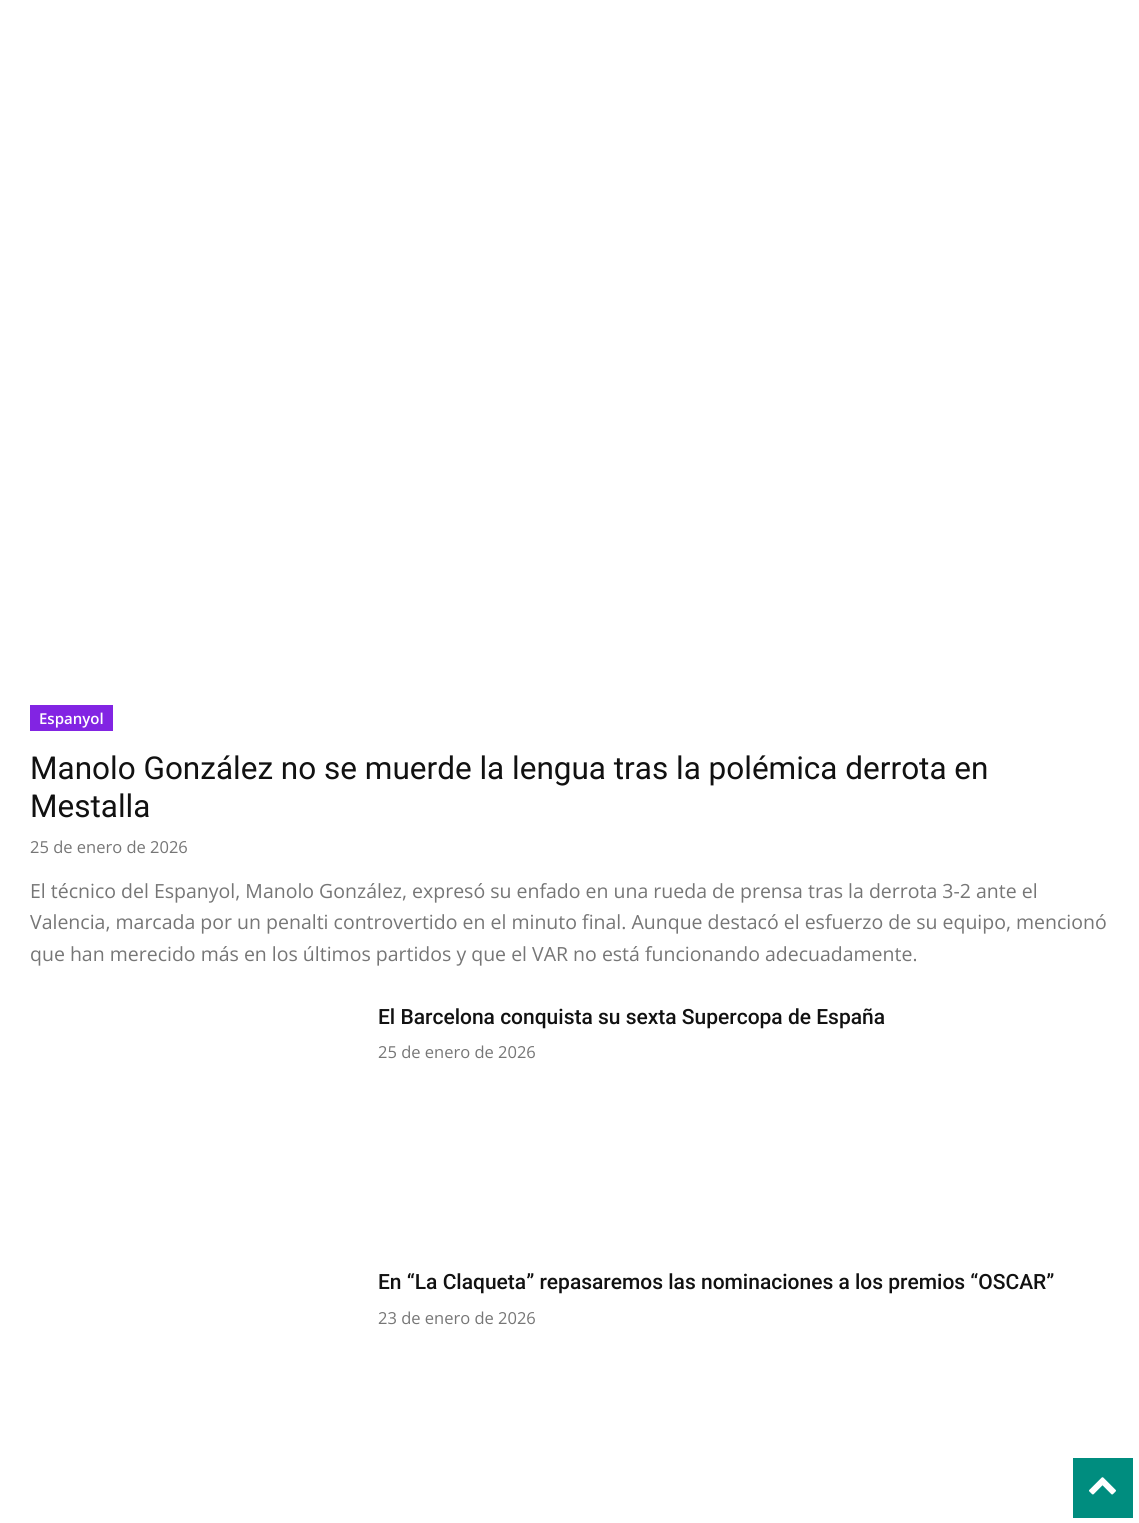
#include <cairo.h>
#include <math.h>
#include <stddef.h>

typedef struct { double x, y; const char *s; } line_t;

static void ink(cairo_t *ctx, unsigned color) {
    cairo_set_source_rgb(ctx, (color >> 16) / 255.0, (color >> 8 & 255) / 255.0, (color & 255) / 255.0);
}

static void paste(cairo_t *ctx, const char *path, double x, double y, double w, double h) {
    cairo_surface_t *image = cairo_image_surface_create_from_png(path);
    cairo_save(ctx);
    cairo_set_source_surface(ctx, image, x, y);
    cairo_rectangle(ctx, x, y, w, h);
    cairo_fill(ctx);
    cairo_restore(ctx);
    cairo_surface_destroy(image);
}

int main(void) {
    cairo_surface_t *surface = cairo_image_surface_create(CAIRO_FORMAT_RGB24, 1139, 1523);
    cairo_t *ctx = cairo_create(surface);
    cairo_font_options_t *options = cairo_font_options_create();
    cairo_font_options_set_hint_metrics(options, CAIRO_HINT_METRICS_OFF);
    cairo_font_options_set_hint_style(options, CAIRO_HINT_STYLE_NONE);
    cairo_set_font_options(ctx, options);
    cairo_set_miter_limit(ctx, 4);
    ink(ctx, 0xFFFFFF);
    cairo_paint(ctx);
    ink(ctx, 0x8224E3);
    cairo_rectangle(ctx, 30, 705, 83, 26);
    cairo_fill(ctx);
    cairo_select_font_face(ctx, "Open Sans SemiBold", CAIRO_FONT_SLANT_NORMAL, CAIRO_FONT_WEIGHT_NORMAL);
    cairo_set_font_size(ctx, 15);
    ink(ctx, 0xFFFFFF);
    cairo_move_to(ctx, 39, 724);
    cairo_show_text(ctx, "Espanyol");
    cairo_select_font_face(ctx, "Roboto", CAIRO_FONT_SLANT_NORMAL, CAIRO_FONT_WEIGHT_NORMAL);
    cairo_set_font_size(ctx, 31.5);
    ink(ctx, 0x111111);
    cairo_move_to(ctx, 30, 779);
    cairo_show_text(ctx, "Manolo González no se muerde la lengua tras la polémica derrota en");
    cairo_move_to(ctx, 30, 817);
    cairo_show_text(ctx, "Mestalla");
    cairo_select_font_face(ctx, "Open Sans", CAIRO_FONT_SLANT_NORMAL, CAIRO_FONT_WEIGHT_NORMAL);
    cairo_set_font_size(ctx, 16.5);
    ink(ctx, 0x767676);
    cairo_move_to(ctx, 30, 853);
    cairo_show_text(ctx, "25 de enero de 2026");
    cairo_set_font_size(ctx, 19.5);
    {
        static const line_t items[] = {
            {30, 898, "El técnico del Espanyol, Manolo González, expresó su enfado en una rueda de prensa tras la derrota 3-2 ante el"},
            {30, 929, "Valencia, marcada por un penalti controvertido en el minuto final. Aunque destacó el esfuerzo de su equipo, mencionó"},
            {30, 961, "que han merecido más en los últimos partidos y que el VAR no está funcionando adecuadamente."},
        };
        for (size_t i = 0; i < sizeof items / sizeof *items; i++) {
            cairo_move_to(ctx, items[i].x, items[i].y);
            cairo_show_text(ctx, items[i].s);
        }
    }
    cairo_select_font_face(ctx, "Roboto Medium", CAIRO_FONT_SLANT_NORMAL, CAIRO_FONT_WEIGHT_NORMAL);
    cairo_set_font_size(ctx, 21);
    ink(ctx, 0x111111);
    cairo_move_to(ctx, 378, 1024);
    cairo_show_text(ctx, "El Barcelona conquista su sexta Supercopa de España");
    cairo_select_font_face(ctx, "Open Sans", CAIRO_FONT_SLANT_NORMAL, CAIRO_FONT_WEIGHT_NORMAL);
    cairo_set_font_size(ctx, 16.5);
    ink(ctx, 0x767676);
    cairo_move_to(ctx, 378, 1058);
    cairo_show_text(ctx, "25 de enero de 2026");
    cairo_select_font_face(ctx, "Roboto Medium", CAIRO_FONT_SLANT_NORMAL, CAIRO_FONT_WEIGHT_NORMAL);
    cairo_set_font_size(ctx, 21);
    ink(ctx, 0x111111);
    cairo_move_to(ctx, 378, 1289);
    cairo_show_text(ctx, "En “La Claqueta” repasaremos las nominaciones a los premios “OSCAR”");
    cairo_select_font_face(ctx, "Open Sans", CAIRO_FONT_SLANT_NORMAL, CAIRO_FONT_WEIGHT_NORMAL);
    cairo_set_font_size(ctx, 16.5);
    ink(ctx, 0x767676);
    cairo_move_to(ctx, 378, 1324);
    cairo_show_text(ctx, "23 de enero de 2026");
    ink(ctx, 0x008D7F);
    cairo_rectangle(ctx, 1073, 1458, 60, 60);
    cairo_fill(ctx);
    paste(ctx, "media/1.png", 1089, 1477, 27, 18);
    cairo_surface_write_to_png(surface, "image.png");
    cairo_font_options_destroy(options);
    cairo_destroy(ctx);
    cairo_surface_destroy(surface);
    return 0;
}
